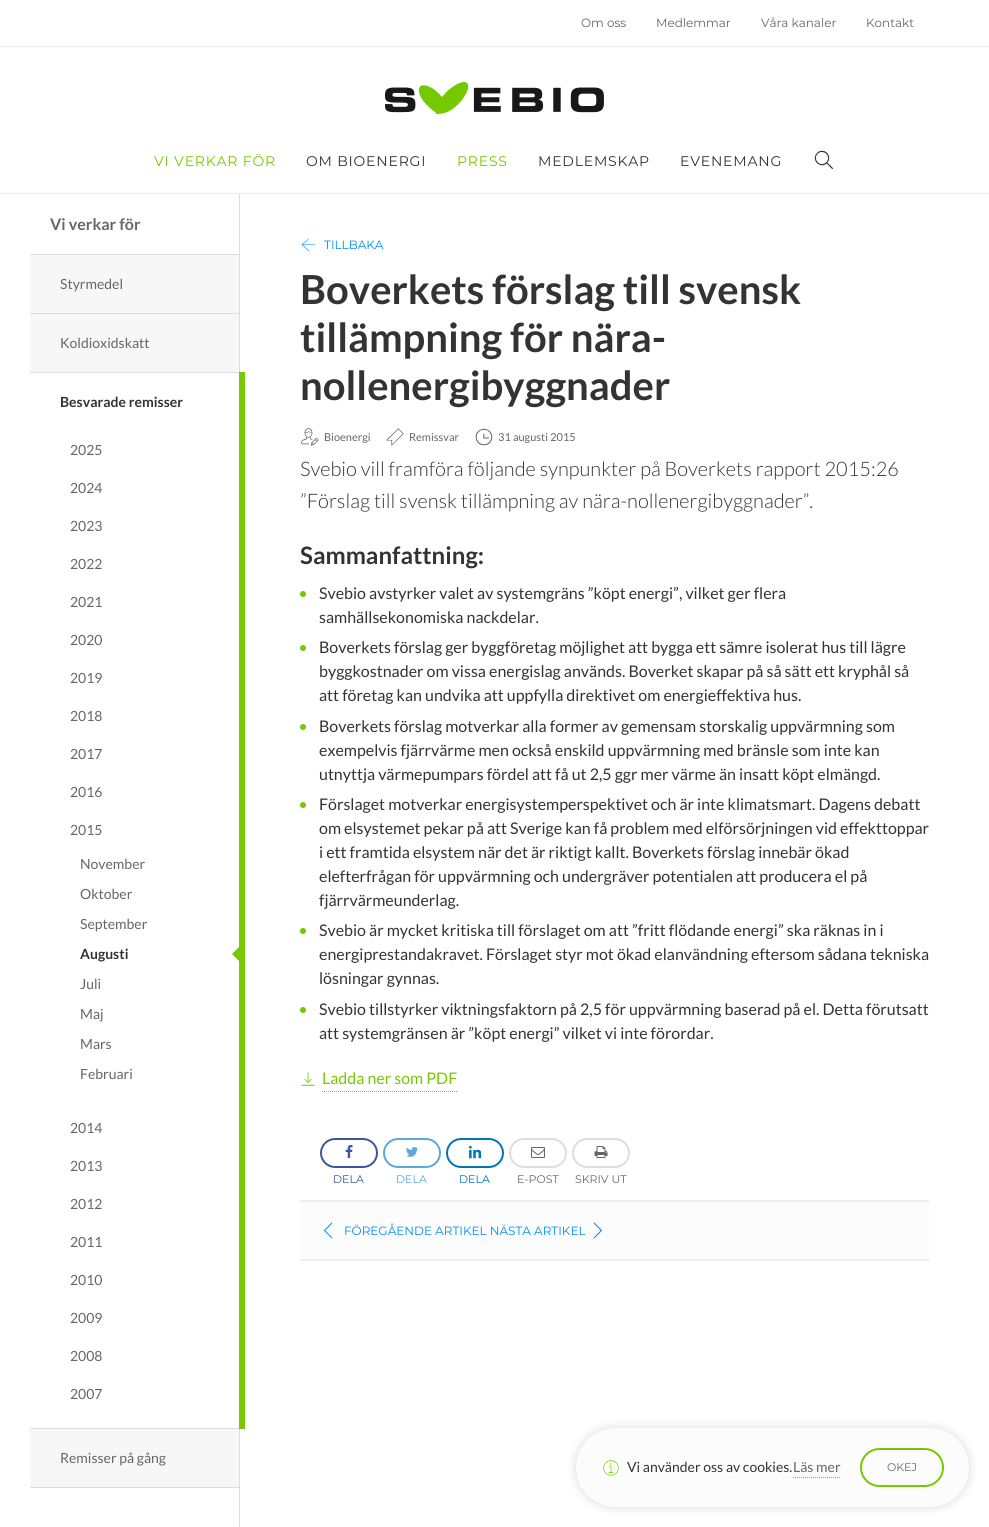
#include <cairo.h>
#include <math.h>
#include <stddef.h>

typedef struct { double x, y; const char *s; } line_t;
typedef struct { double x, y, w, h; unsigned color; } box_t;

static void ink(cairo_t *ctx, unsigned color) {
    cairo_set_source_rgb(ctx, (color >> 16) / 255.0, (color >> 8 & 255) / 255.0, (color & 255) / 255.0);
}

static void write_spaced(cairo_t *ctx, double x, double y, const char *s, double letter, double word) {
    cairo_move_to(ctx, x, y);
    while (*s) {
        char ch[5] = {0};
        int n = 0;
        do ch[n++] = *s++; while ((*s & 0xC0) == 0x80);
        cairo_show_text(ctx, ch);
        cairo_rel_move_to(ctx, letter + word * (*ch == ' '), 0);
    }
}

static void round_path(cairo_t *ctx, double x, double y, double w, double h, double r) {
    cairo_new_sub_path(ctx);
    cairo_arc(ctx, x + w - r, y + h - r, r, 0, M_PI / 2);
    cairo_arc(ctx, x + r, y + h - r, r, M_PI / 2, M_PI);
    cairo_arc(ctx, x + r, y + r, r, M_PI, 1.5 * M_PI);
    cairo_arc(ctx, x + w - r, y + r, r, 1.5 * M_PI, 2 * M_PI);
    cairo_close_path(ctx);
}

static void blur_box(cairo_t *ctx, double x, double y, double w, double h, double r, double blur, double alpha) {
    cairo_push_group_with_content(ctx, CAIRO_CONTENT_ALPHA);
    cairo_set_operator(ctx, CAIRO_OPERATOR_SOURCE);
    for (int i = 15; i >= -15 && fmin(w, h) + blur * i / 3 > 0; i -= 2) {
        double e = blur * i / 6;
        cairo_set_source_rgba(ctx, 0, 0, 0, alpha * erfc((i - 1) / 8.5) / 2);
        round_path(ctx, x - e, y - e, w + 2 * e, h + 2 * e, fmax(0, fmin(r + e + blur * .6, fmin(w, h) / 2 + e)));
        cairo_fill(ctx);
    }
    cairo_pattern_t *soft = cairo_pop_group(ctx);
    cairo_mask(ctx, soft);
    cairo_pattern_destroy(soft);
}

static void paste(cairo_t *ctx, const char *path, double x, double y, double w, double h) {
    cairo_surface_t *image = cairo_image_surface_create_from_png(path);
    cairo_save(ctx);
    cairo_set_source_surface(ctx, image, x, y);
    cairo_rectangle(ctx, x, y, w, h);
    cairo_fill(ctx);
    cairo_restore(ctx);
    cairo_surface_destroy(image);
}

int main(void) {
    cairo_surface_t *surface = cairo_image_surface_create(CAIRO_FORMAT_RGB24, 989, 1527);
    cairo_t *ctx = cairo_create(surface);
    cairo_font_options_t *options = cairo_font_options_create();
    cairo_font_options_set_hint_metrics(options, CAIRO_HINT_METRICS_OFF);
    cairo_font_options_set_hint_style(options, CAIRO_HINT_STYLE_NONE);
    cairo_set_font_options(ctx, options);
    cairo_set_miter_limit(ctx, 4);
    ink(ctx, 0xFFFFFF);
    cairo_paint(ctx);
    ink(ctx, 0xEEEEEE);
    cairo_rectangle(ctx, 0, 46, 989, 1);
    cairo_fill(ctx);
    cairo_select_font_face(ctx, "Montserrat", CAIRO_FONT_SLANT_NORMAL, CAIRO_FONT_WEIGHT_NORMAL);
    cairo_set_font_size(ctx, 12);
    ink(ctx, 0x666666);
    {
        static const line_t items[] = {
            {581, 27, "Om oss"},
            {656, 27, "Medlemmar"},
            {761, 27, "Våra kanaler"},
            {866, 27, "Kontakt"},
        };
        for (size_t i = 0; i < sizeof items / sizeof *items; i++) {
            cairo_move_to(ctx, items[i].x, items[i].y);
            cairo_show_text(ctx, items[i].s);
        }
    }
    paste(ctx, "media/1.png", 385, 82, 219, 32);
    ink(ctx, 0xEEEEEE);
    cairo_rectangle(ctx, 0, 193, 989, 1);
    cairo_fill(ctx);
    cairo_set_font_size(ctx, 14);
    ink(ctx, 0x76C900);
    write_spaced(ctx, 154, 166, "VI VERKAR FÖR", 0.8, 0);
    ink(ctx, 0x333333);
    write_spaced(ctx, 306, 166, "OM BIOENERGI", 0.8, 0);
    ink(ctx, 0x76C900);
    write_spaced(ctx, 457, 166, "PRESS", 0.8, 0);
    ink(ctx, 0x333333);
    write_spaced(ctx, 538, 166, "MEDLEMSKAP", 0.8, 0);
    write_spaced(ctx, 680, 166, "EVENEMANG", 0.8, 0);
    paste(ctx, "media/2.png", 814, 150, 19, 20);
    ink(ctx, 0xDDDDDD);
    cairo_rectangle(ctx, 239, 194, 1, 1333);
    cairo_fill(ctx);
    cairo_rectangle(ctx, 30, 254, 209, 1);
    cairo_fill(ctx);
    cairo_select_font_face(ctx, "Lato", CAIRO_FONT_SLANT_NORMAL, CAIRO_FONT_WEIGHT_BOLD);
    cairo_set_font_size(ctx, 16);
    ink(ctx, 0x666666);
    cairo_move_to(ctx, 50, 230);
    cairo_show_text(ctx, "Vi verkar för");
    ink(ctx, 0xF7F7F7);
    cairo_rectangle(ctx, 30, 255, 209, 58);
    cairo_fill(ctx);
    ink(ctx, 0xDDDDDD);
    cairo_rectangle(ctx, 30, 313, 209, 1);
    cairo_fill(ctx);
    cairo_select_font_face(ctx, "Lato", CAIRO_FONT_SLANT_NORMAL, CAIRO_FONT_WEIGHT_NORMAL);
    cairo_set_font_size(ctx, 14);
    ink(ctx, 0x666666);
    cairo_move_to(ctx, 60, 289);
    cairo_show_text(ctx, "Styrmedel");
    ink(ctx, 0xF7F7F7);
    cairo_rectangle(ctx, 30, 314, 209, 58);
    cairo_fill(ctx);
    ink(ctx, 0xDDDDDD);
    cairo_rectangle(ctx, 30, 372, 209, 1);
    cairo_fill(ctx);
    ink(ctx, 0x666666);
    cairo_move_to(ctx, 60, 348);
    cairo_show_text(ctx, "Koldioxidskatt");
    ink(ctx, 0xDDDDDD);
    cairo_rectangle(ctx, 30, 1428, 209, 1);
    cairo_fill(ctx);
    cairo_select_font_face(ctx, "Lato", CAIRO_FONT_SLANT_NORMAL, CAIRO_FONT_WEIGHT_BOLD);
    ink(ctx, 0x333333);
    cairo_move_to(ctx, 60, 407);
    cairo_show_text(ctx, "Besvarade remisser");
    ink(ctx, 0x76C900);
    cairo_new_path(ctx);
    cairo_move_to(ctx, 240, 946);
    cairo_line_to(ctx, 240, 962);
    cairo_line_to(ctx, 232, 954);
    cairo_close_path(ctx);
    cairo_fill(ctx);
    cairo_rectangle(ctx, 239, 372, 6, 1057);
    cairo_fill(ctx);
    cairo_select_font_face(ctx, "Lato", CAIRO_FONT_SLANT_NORMAL, CAIRO_FONT_WEIGHT_NORMAL);
    ink(ctx, 0x666666);
    {
        static const line_t items[] = {
            {70, 455, "2025"},
            {70, 493, "2024"},
            {70, 531, "2023"},
            {70, 569, "2022"},
            {70, 607, "2021"},
            {70, 645, "2020"},
            {70, 683, "2019"},
            {70, 721, "2018"},
            {70, 759, "2017"},
            {70, 797, "2016"},
            {70, 835, "2015"},
            {80, 869, "November"},
            {80, 899, "Oktober"},
            {80, 929, "September"},
        };
        for (size_t i = 0; i < sizeof items / sizeof *items; i++) {
            cairo_move_to(ctx, items[i].x, items[i].y);
            cairo_show_text(ctx, items[i].s);
        }
    }
    cairo_select_font_face(ctx, "Lato", CAIRO_FONT_SLANT_NORMAL, CAIRO_FONT_WEIGHT_BOLD);
    ink(ctx, 0x333333);
    cairo_move_to(ctx, 80, 959);
    cairo_show_text(ctx, "Augusti");
    cairo_select_font_face(ctx, "Lato", CAIRO_FONT_SLANT_NORMAL, CAIRO_FONT_WEIGHT_NORMAL);
    ink(ctx, 0x666666);
    {
        static const line_t items[] = {
            {80, 989, "Juli"},
            {80, 1019, "Maj"},
            {80, 1049, "Mars"},
            {80, 1079, "Februari"},
            {70, 1133, "2014"},
            {70, 1171, "2013"},
            {70, 1209, "2012"},
            {70, 1247, "2011"},
            {70, 1285, "2010"},
            {70, 1323, "2009"},
            {70, 1361, "2008"},
            {70, 1399, "2007"},
        };
        for (size_t i = 0; i < sizeof items / sizeof *items; i++) {
            cairo_move_to(ctx, items[i].x, items[i].y);
            cairo_show_text(ctx, items[i].s);
        }
    }
    ink(ctx, 0xF7F7F7);
    cairo_rectangle(ctx, 30, 1429, 209, 58);
    cairo_fill(ctx);
    ink(ctx, 0xDDDDDD);
    cairo_rectangle(ctx, 30, 1487, 209, 1);
    cairo_fill(ctx);
    ink(ctx, 0x666666);
    cairo_move_to(ctx, 60, 1463);
    cairo_show_text(ctx, "Remisser på gång");
    paste(ctx, "media/3.png", 301, 238, 15, 14);
    cairo_select_font_face(ctx, "Montserrat", CAIRO_FONT_SLANT_NORMAL, CAIRO_FONT_WEIGHT_NORMAL);
    cairo_set_font_size(ctx, 12);
    ink(ctx, 0x008DF2);
    cairo_move_to(ctx, 324, 249);
    cairo_show_text(ctx, "TILLBAKA");
    cairo_select_font_face(ctx, "Lato", CAIRO_FONT_SLANT_NORMAL, CAIRO_FONT_WEIGHT_BOLD);
    cairo_set_font_size(ctx, 40);
    ink(ctx, 0x333333);
    {
        static const line_t items[] = {
            {300, 304, "Boverkets förslag till svensk"},
            {300, 352, "tillämpning för nära-"},
            {300, 400, "nollenergibyggnader"},
        };
        for (size_t i = 0; i < sizeof items / sizeof *items; i++) {
            cairo_move_to(ctx, items[i].x, items[i].y);
            cairo_show_text(ctx, items[i].s);
        }
    }
    paste(ctx, "media/4.png", 301, 428, 18, 18);
    cairo_select_font_face(ctx, "Lato", CAIRO_FONT_SLANT_NORMAL, CAIRO_FONT_WEIGHT_NORMAL);
    cairo_set_font_size(ctx, 11);
    ink(ctx, 0x666666);
    cairo_move_to(ctx, 324, 441);
    cairo_show_text(ctx, "Bioenergi");
    paste(ctx, "media/5.png", 386, 428, 18, 18);
    cairo_move_to(ctx, 409, 441);
    cairo_show_text(ctx, "Remissvar");
    paste(ctx, "media/6.png", 475, 428, 18, 18);
    cairo_move_to(ctx, 498, 441);
    cairo_show_text(ctx, "31 augusti 2015");
    cairo_select_font_face(ctx, "Lato Light", CAIRO_FONT_SLANT_NORMAL, CAIRO_FONT_WEIGHT_NORMAL);
    cairo_set_font_size(ctx, 20);
    ink(ctx, 0x333333);
    cairo_move_to(ctx, 300, 476);
    cairo_show_text(ctx, "Svebio vill framföra följande synpunkter på Boverkets rapport 2015:26");
    cairo_move_to(ctx, 300, 508);
    cairo_show_text(ctx, "”Förslag till svensk tillämpning av nära-nollenergibyggnader”.");
    cairo_select_font_face(ctx, "Lato", CAIRO_FONT_SLANT_NORMAL, CAIRO_FONT_WEIGHT_BOLD);
    cairo_set_font_size(ctx, 24);
    cairo_move_to(ctx, 300, 564);
    cairo_show_text(ctx, "Sammanfattning:");
    ink(ctx, 0x76C900);
    cairo_new_path(ctx);
    cairo_arc(ctx, 303, 594, 3, 0, 2 * M_PI);
    cairo_fill(ctx);
    cairo_select_font_face(ctx, "Lato", CAIRO_FONT_SLANT_NORMAL, CAIRO_FONT_WEIGHT_NORMAL);
    cairo_set_font_size(ctx, 16);
    ink(ctx, 0x333333);
    cairo_move_to(ctx, 319, 599);
    cairo_show_text(ctx, "Svebio avstyrker valet av systemgräns ”köpt energi”, vilket ger flera");
    cairo_move_to(ctx, 319, 623);
    cairo_show_text(ctx, "samhällsekonomiska nackdelar.");
    ink(ctx, 0x76C900);
    cairo_new_path(ctx);
    cairo_arc(ctx, 303, 648, 3, 0, 2 * M_PI);
    cairo_fill(ctx);
    ink(ctx, 0x333333);
    {
        static const line_t items[] = {
            {319, 653, "Boverkets förslag ger byggföretag möjlighet att bygga ett sämre isolerat hus till lägre"},
            {319, 677, "byggkostnader om vissa energislag används. Boverket skapar på så sätt ett kryphål så"},
            {319, 701, "att företag kan undvika att uppfylla direktivet om energieffektiva hus."},
        };
        for (size_t i = 0; i < sizeof items / sizeof *items; i++) {
            cairo_move_to(ctx, items[i].x, items[i].y);
            cairo_show_text(ctx, items[i].s);
        }
    }
    ink(ctx, 0x76C900);
    cairo_new_path(ctx);
    cairo_arc(ctx, 303, 727, 3, 0, 2 * M_PI);
    cairo_fill(ctx);
    ink(ctx, 0x333333);
    {
        static const line_t items[] = {
            {319, 732, "Boverkets förslag motverkar alla former av gemensam storskalig uppvärmning som"},
            {319, 756, "exempelvis fjärrvärme men också enskild uppvärmning med bränsle som inte kan"},
            {319, 780, "utnyttja värmepumpars fördel att få ut 2,5 ggr mer värme än insatt köpt elmängd."},
        };
        for (size_t i = 0; i < sizeof items / sizeof *items; i++) {
            cairo_move_to(ctx, items[i].x, items[i].y);
            cairo_show_text(ctx, items[i].s);
        }
    }
    ink(ctx, 0x76C900);
    cairo_new_path(ctx);
    cairo_arc(ctx, 303, 805, 3, 0, 2 * M_PI);
    cairo_fill(ctx);
    ink(ctx, 0x333333);
    {
        static const line_t items[] = {
            {319, 810, "Förslaget motverkar energisystemperspektivet och är inte klimatsmart. Dagens debatt"},
            {319, 834, "om elsystemet pekar på att Sverige kan få problem med elförsörjningen vid effekttoppar"},
            {319, 858, "i ett framtida elsystem när det är riktigt kallt. Boverkets förslag innebär ökad"},
            {319, 882, "elefterfrågan för uppvärmning och undergräver potentialen att producera el på"},
            {319, 906, "fjärrvärmeunderlag."},
        };
        for (size_t i = 0; i < sizeof items / sizeof *items; i++) {
            cairo_move_to(ctx, items[i].x, items[i].y);
            cairo_show_text(ctx, items[i].s);
        }
    }
    ink(ctx, 0x76C900);
    cairo_new_path(ctx);
    cairo_arc(ctx, 303, 931, 3, 0, 2 * M_PI);
    cairo_fill(ctx);
    ink(ctx, 0x333333);
    {
        static const line_t items[] = {
            {319, 936, "Svebio är mycket kritiska till förslaget om att ”fritt flödande energi” ska räknas in i"},
            {319, 960, "energiprestandakravet. Förslaget styr mot ökad elanvändning eftersom sådana tekniska"},
            {319, 984, "lösningar gynnas."},
        };
        for (size_t i = 0; i < sizeof items / sizeof *items; i++) {
            cairo_move_to(ctx, items[i].x, items[i].y);
            cairo_show_text(ctx, items[i].s);
        }
    }
    ink(ctx, 0x76C900);
    cairo_new_path(ctx);
    cairo_arc(ctx, 303, 1010, 3, 0, 2 * M_PI);
    cairo_fill(ctx);
    ink(ctx, 0x333333);
    cairo_move_to(ctx, 319, 1015);
    cairo_show_text(ctx, "Svebio tillstyrker viktningsfaktorn på 2,5 för uppvärmning baserad på el. Detta förutsatt");
    cairo_move_to(ctx, 319, 1039);
    cairo_show_text(ctx, "att systemgränsen är ”köpt energi” vilket vi inte förordar.");
    paste(ctx, "media/7.png", 301, 1072, 14, 14);
    cairo_new_path(ctx);
    cairo_move_to(ctx, 322, 1091.5);
    cairo_line_to(ctx, 457, 1091.5);
    ink(ctx, 0x76C900);
    cairo_set_line_width(ctx, 1);
    cairo_set_dash(ctx, (double[]){1, 1}, 2, 0);
    cairo_stroke(ctx);
    cairo_move_to(ctx, 322, 1084);
    cairo_show_text(ctx, "Ladda ner som PDF");
    round_path(ctx, 321, 1139, 56, 28, 14);
    ink(ctx, 0x3D589A);
    cairo_set_line_width(ctx, 2);
    cairo_set_dash(ctx, NULL, 0, 0);
    cairo_stroke(ctx);
    paste(ctx, "media/8.png", 345, 1145, 8, 13);
    cairo_select_font_face(ctx, "Montserrat", CAIRO_FONT_SLANT_NORMAL, CAIRO_FONT_WEIGHT_NORMAL);
    cairo_set_font_size(ctx, 11);
    cairo_move_to(ctx, 333, 1183);
    cairo_show_text(ctx, "DELA");
    round_path(ctx, 384, 1139, 56, 28, 14);
    ink(ctx, 0x5EA7DD);
    cairo_stroke(ctx);
    paste(ctx, "media/9.png", 406, 1147, 12, 10);
    cairo_move_to(ctx, 396, 1183);
    cairo_show_text(ctx, "DELA");
    round_path(ctx, 447, 1139, 56, 28, 14);
    ink(ctx, 0x0077B5);
    cairo_stroke(ctx);
    paste(ctx, "media/10.png", 468, 1146, 14, 13);
    cairo_move_to(ctx, 459, 1183);
    cairo_show_text(ctx, "DELA");
    round_path(ctx, 510, 1139, 56, 28, 14);
    ink(ctx, 0xDDDDDD);
    cairo_stroke(ctx);
    paste(ctx, "media/11.png", 531, 1147, 14, 11);
    ink(ctx, 0x666666);
    cairo_move_to(ctx, 517, 1183);
    cairo_show_text(ctx, "E-POST");
    round_path(ctx, 573, 1139, 56, 28, 14);
    ink(ctx, 0xDDDDDD);
    cairo_stroke(ctx);
    paste(ctx, "media/12.png", 594, 1146, 14, 12);
    ink(ctx, 0x666666);
    cairo_move_to(ctx, 575, 1183);
    cairo_show_text(ctx, "SKRIV UT");
    {
        static const box_t items[] = {
            {300, 1202, 629, 57, 0xFCFCFC},
            {300, 1200, 629, 2, 0xEEEEEE},
            {300, 1259, 629, 2, 0xEEEEEE},
        };
        for (size_t i = 0; i < sizeof items / sizeof *items; i++) {
            ink(ctx, items[i].color);
            cairo_rectangle(ctx, items[i].x, items[i].y, items[i].w, items[i].h);
            cairo_fill(ctx);
        }
    }
    paste(ctx, "media/13.png", 323, 1222, 10, 17);
    cairo_set_font_size(ctx, 12);
    ink(ctx, 0x008DF2);
    cairo_move_to(ctx, 344, 1235);
    cairo_show_text(ctx, "FÖREGÅENDE ARTIKEL NÄSTA ARTIKEL");
    paste(ctx, "media/14.png", 593, 1222, 10, 17);
    ink(ctx, 0x000000);
    blur_box(ctx, 576, 1428, 393, 79, 39.5, 5, 0.15);
    ink(ctx, 0xFCFCFC);
    round_path(ctx, 576, 1428, 393, 79, 39.5);
    cairo_fill(ctx);
    paste(ctx, "media/15.png", 603, 1460, 16, 16);
    cairo_select_font_face(ctx, "Lato", CAIRO_FONT_SLANT_NORMAL, CAIRO_FONT_WEIGHT_NORMAL);
    cairo_set_font_size(ctx, 14);
    ink(ctx, 0x333333);
    cairo_move_to(ctx, 627, 1472);
    cairo_show_text(ctx, "Vi använder oss av cookies.");
    ink(ctx, 0x666666);
    cairo_move_to(ctx, 793, 1472);
    cairo_show_text(ctx, "Läs mer");
    cairo_new_path(ctx);
    cairo_move_to(ctx, 793, 1477.5);
    cairo_line_to(ctx, 840, 1477.5);
    ink(ctx, 0x76C900);
    cairo_set_line_width(ctx, 1);
    cairo_set_dash(ctx, (double[]){1, 1}, 2, 0);
    cairo_stroke(ctx);
    round_path(ctx, 861, 1449, 82, 37, 18.5);
    cairo_set_line_width(ctx, 2);
    cairo_set_dash(ctx, NULL, 0, 0);
    cairo_stroke(ctx);
    cairo_select_font_face(ctx, "Montserrat", CAIRO_FONT_SLANT_NORMAL, CAIRO_FONT_WEIGHT_NORMAL);
    cairo_set_font_size(ctx, 11);
    ink(ctx, 0x666666);
    cairo_move_to(ctx, 887, 1471);
    cairo_show_text(ctx, "OKEJ");
    cairo_surface_write_to_png(surface, "image.png");
    cairo_font_options_destroy(options);
    cairo_destroy(ctx);
    cairo_surface_destroy(surface);
    return 0;
}
